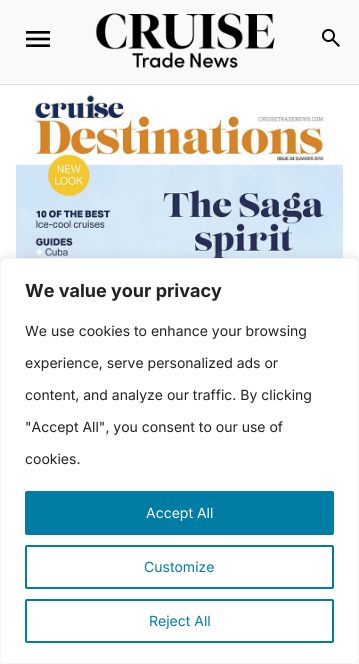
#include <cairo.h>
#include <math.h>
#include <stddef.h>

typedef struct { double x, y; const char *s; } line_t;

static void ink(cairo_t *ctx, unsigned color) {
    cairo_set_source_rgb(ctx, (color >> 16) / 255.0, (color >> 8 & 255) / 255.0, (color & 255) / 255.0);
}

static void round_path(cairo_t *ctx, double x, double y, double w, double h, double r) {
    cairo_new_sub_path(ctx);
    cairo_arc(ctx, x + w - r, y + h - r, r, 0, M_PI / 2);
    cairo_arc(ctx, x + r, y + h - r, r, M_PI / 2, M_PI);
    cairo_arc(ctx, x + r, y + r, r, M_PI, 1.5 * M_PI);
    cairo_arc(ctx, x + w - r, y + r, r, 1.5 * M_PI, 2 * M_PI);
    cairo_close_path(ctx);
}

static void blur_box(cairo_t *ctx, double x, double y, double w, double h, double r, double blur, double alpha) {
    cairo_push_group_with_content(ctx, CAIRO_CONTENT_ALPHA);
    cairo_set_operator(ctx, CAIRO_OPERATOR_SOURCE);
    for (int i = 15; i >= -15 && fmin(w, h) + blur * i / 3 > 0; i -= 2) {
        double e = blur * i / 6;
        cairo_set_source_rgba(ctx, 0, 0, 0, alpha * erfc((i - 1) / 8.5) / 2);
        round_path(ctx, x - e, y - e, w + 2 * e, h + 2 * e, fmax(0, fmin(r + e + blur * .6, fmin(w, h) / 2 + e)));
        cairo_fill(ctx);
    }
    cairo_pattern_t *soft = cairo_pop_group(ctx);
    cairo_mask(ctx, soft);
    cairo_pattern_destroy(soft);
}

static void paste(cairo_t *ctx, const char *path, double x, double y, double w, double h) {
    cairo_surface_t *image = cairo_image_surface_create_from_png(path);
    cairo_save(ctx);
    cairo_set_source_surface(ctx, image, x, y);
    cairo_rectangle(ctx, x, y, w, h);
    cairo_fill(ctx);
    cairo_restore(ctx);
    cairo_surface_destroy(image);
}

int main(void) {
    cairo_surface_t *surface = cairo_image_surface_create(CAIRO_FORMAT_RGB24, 359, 664);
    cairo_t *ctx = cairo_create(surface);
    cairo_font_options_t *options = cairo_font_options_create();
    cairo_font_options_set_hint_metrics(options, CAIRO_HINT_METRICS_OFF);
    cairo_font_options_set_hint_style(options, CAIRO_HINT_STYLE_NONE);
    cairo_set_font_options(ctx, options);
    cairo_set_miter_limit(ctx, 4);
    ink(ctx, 0xFFFFFF);
    cairo_paint(ctx);
    ink(ctx, 0xF9F9FA);
    cairo_rectangle(ctx, 0, 0, 359, 84);
    cairo_fill(ctx);
    ink(ctx, 0xDCDCE3);
    cairo_rectangle(ctx, 0, 84, 359, 1);
    cairo_fill(ctx);
    paste(ctx, "media/1.png", 26, 31, 24, 16);
    paste(ctx, "media/2.png", 95, 13, 180, 55);
    paste(ctx, "media/3.png", 322, 29, 18, 18);
    paste(ctx, "media/4.png", 16, 85, 327, 173);
    ink(ctx, 0xACABAB);
    blur_box(ctx, 0, 257, 359, 406, 6, 5, 0.3);
    ink(ctx, 0xFFFFFF);
    round_path(ctx, 0.5, 258.5, 358, 405, 5.5);
    cairo_fill_preserve(ctx);
    ink(ctx, 0xF4F4F4);
    cairo_set_line_width(ctx, 1);
    cairo_stroke(ctx);
    cairo_select_font_face(ctx, "Inter", CAIRO_FONT_SLANT_NORMAL, CAIRO_FONT_WEIGHT_BOLD);
    cairo_set_font_size(ctx, 18);
    ink(ctx, 0x212121);
    cairo_move_to(ctx, 25, 297);
    cairo_show_text(ctx, "We value your privacy");
    cairo_select_font_face(ctx, "Inter", CAIRO_FONT_SLANT_NORMAL, CAIRO_FONT_WEIGHT_NORMAL);
    cairo_set_font_size(ctx, 14);
    {
        static const line_t items[] = {
            {25, 336, "We use cookies to enhance your browsing"},
            {25, 368, "experience, serve personalized ads or"},
            {25, 400, "content, and analyze our traffic. By clicking"},
            {25, 432, "\"Accept All\", you consent to our use of"},
            {25, 464, "cookies."},
        };
        for (size_t i = 0; i < sizeof items / sizeof *items; i++) {
            cairo_move_to(ctx, items[i].x, items[i].y);
            cairo_show_text(ctx, items[i].s);
        }
    }
    ink(ctx, 0x007CA5);
    round_path(ctx, 26, 492, 307, 42, 1);
    cairo_fill_preserve(ctx);
    cairo_set_line_width(ctx, 2);
    cairo_stroke(ctx);
    ink(ctx, 0xFFFFFF);
    cairo_move_to(ctx, 146, 518);
    cairo_show_text(ctx, "Accept All");
    round_path(ctx, 26, 546, 307, 42, 1);
    ink(ctx, 0x007CA5);
    cairo_stroke(ctx);
    cairo_move_to(ctx, 144, 572);
    cairo_show_text(ctx, "Customize");
    round_path(ctx, 26, 600, 307, 42, 1);
    cairo_stroke(ctx);
    cairo_move_to(ctx, 149, 626);
    cairo_show_text(ctx, "Reject All");
    cairo_surface_write_to_png(surface, "image.png");
    cairo_font_options_destroy(options);
    cairo_destroy(ctx);
    cairo_surface_destroy(surface);
    return 0;
}
